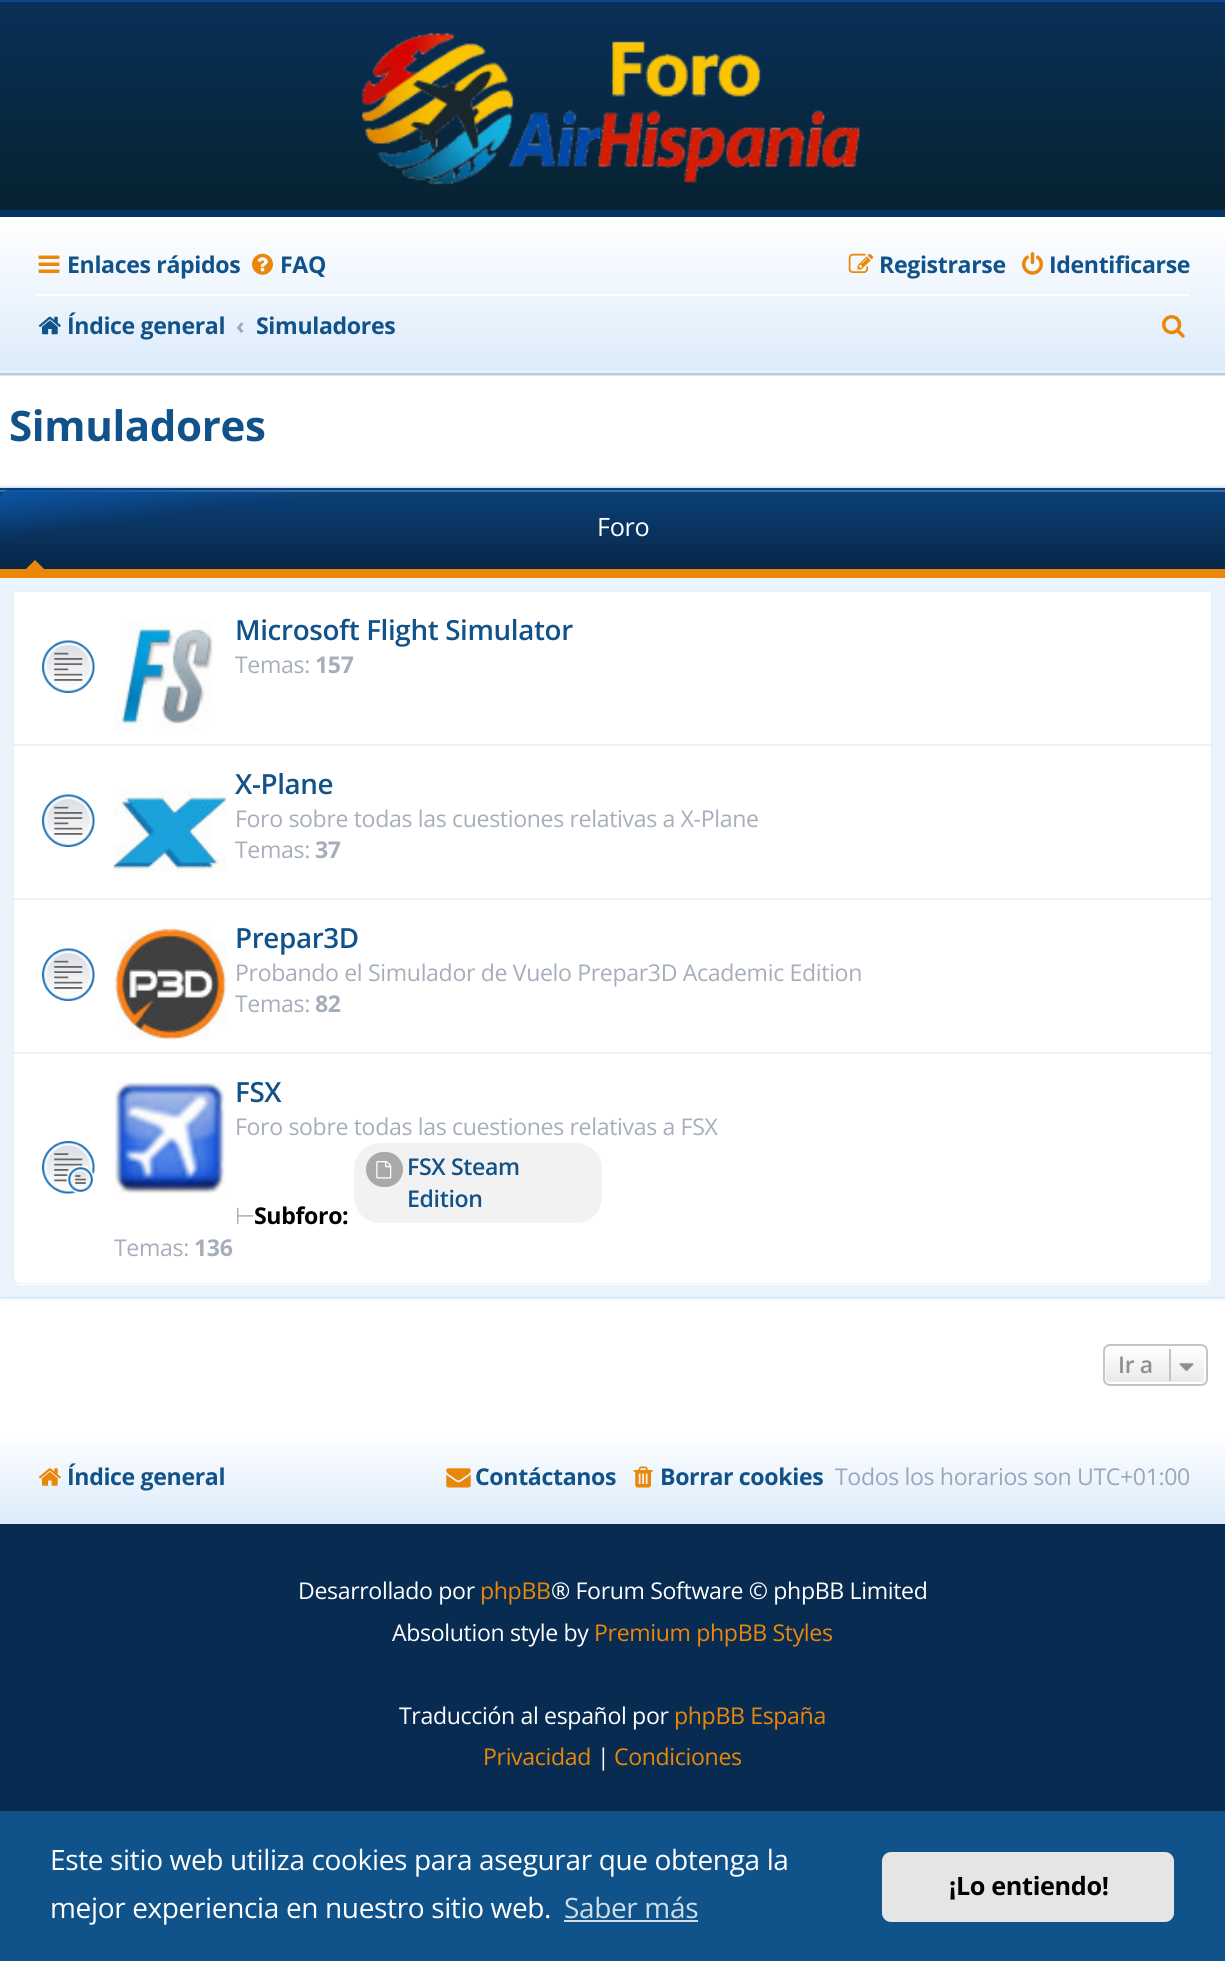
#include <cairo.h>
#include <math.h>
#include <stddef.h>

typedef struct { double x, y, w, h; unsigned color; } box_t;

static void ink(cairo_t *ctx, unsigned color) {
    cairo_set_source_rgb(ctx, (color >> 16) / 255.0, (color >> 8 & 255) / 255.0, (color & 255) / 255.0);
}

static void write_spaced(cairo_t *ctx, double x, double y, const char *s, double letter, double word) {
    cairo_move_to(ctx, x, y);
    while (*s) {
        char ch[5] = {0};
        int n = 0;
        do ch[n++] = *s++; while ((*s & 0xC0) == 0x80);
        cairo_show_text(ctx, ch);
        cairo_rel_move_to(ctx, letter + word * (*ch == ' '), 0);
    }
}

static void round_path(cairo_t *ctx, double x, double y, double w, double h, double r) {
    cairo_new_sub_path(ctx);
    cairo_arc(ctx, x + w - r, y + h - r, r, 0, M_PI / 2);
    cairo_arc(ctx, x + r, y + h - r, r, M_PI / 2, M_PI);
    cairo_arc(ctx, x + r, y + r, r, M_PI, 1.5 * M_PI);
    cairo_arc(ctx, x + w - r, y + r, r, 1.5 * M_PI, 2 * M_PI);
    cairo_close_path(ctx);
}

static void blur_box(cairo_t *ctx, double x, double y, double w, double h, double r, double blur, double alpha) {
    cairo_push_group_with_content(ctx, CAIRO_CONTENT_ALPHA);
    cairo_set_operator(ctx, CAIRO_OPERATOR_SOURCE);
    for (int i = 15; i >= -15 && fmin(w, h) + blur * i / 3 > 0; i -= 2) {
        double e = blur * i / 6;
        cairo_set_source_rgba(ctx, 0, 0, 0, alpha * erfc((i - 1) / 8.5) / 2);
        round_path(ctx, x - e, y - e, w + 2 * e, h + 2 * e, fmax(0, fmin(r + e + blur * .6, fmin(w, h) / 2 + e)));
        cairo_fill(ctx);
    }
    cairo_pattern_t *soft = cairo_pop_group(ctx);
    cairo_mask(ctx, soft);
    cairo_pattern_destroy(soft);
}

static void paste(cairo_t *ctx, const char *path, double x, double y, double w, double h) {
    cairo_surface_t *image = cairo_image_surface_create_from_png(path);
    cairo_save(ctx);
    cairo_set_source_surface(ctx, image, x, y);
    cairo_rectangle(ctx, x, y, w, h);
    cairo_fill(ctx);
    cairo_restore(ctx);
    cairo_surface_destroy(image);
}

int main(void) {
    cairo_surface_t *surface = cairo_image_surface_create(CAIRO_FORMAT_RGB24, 1225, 1961);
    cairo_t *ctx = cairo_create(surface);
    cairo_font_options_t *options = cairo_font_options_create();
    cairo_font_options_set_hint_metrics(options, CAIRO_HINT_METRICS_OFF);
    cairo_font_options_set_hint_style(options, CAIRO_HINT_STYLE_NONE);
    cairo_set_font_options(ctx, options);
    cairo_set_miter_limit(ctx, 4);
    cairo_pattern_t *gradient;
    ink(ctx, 0x082B51);
    cairo_paint(ctx);
    ink(ctx, 0xFFFFFF);
    cairo_rectangle(ctx, 0, 376, 1225, 1054);
    cairo_fill(ctx);
    gradient = cairo_pattern_create_linear(613, 217, 613, 1.8);
    cairo_pattern_add_color_stop_rgba(gradient, 0, 0.027, 0.133, 0.184, 1);
    cairo_pattern_add_color_stop_rgba(gradient, 1, 0.035, 0.188, 0.345, 1);
    cairo_set_source(ctx, gradient);
    cairo_pattern_destroy(gradient);
    cairo_rectangle(ctx, 0, 2, 1225, 208);
    cairo_fill(ctx);
    ink(ctx, 0x0A498E);
    cairo_rectangle(ctx, 0, 0, 1225, 2);
    cairo_fill(ctx);
    paste(ctx, "media/1.png", 361, 32, 499, 153);
    ink(ctx, 0xD9E6F1);
    cairo_rectangle(ctx, 0, 375, 1225, 1);
    cairo_fill(ctx);
    gradient = cairo_pattern_create_linear(613, 373, 613, 217);
    cairo_pattern_add_color_stop_rgba(gradient, 0, 0.863, 0.922, 0.984, 1);
    cairo_pattern_add_color_stop_rgba(gradient, 1, 1, 1, 1, 1);
    cairo_set_source(ctx, gradient);
    cairo_pattern_destroy(gradient);
    cairo_rectangle(ctx, 0, 217, 1225, 154);
    cairo_fill(ctx);
    {
        static const box_t items[] = {
            {0, 371, 1225, 2, 0xE7F1FC},
            {0, 210, 1225, 7, 0x063465},
            {0, 373, 1225, 2, 0xB3CCE4},
        };
        for (size_t i = 0; i < sizeof items / sizeof *items; i++) {
            ink(ctx, items[i].color);
            cairo_rectangle(ctx, items[i].x, items[i].y, items[i].w, items[i].h);
            cairo_fill(ctx);
        }
    }
    paste(ctx, "media/2.png", 38, 255, 22, 18);
    cairo_select_font_face(ctx, "Open Sans", CAIRO_FONT_SLANT_NORMAL, CAIRO_FONT_WEIGHT_BOLD);
    cairo_set_font_size(ctx, 23.1);
    ink(ctx, 0x105289);
    write_spaced(ctx, 67, 273, "Enlaces rápidos", -0.35, 0);
    paste(ctx, "media/3.png", 252, 253, 21, 22);
    write_spaced(ctx, 280, 273, "FAQ", -0.35, 0);
    paste(ctx, "media/4.png", 848, 253, 26, 20);
    write_spaced(ctx, 879, 273, "Registrarse", -0.35, 0);
    paste(ctx, "media/5.png", 1022, 252, 21, 23);
    write_spaced(ctx, 1049, 273, "Identificarse", -0.35, 0);
    ink(ctx, 0xFFFFFF);
    cairo_rectangle(ctx, 35, 294, 1155, 2);
    cairo_fill(ctx);
    paste(ctx, "media/6.png", 38, 316, 23, 19);
    ink(ctx, 0x105289);
    write_spaced(ctx, 67, 334, "Índice general", -0.35, 0);
    ink(ctx, 0x99A7BA);
    write_spaced(ctx, 236, 334, "‹", -0.35, 0);
    ink(ctx, 0x105289);
    write_spaced(ctx, 256, 334, "Simuladores", -0.35, 0);
    paste(ctx, "media/7.png", 1162, 315, 23, 23);
    cairo_set_font_size(ctx, 42);
    write_spaced(ctx, 9, 441, "Simuladores", -0.35, 0);
    ink(ctx, 0x80B8EF);
    blur_box(ctx, 0, 488, 1225, 809, 0, 2, 0.9);
    ink(ctx, 0xEBF4FC);
    cairo_rectangle(ctx, 0, 578, 1225, 719);
    cairo_fill(ctx);
    gradient = cairo_pattern_create_linear(613, 569, 613, 490);
    cairo_pattern_add_color_stop_rgba(gradient, 0, 0.027, 0.153, 0.278, 1);
    cairo_pattern_add_color_stop_rgba(gradient, 1, 0.043, 0.251, 0.478, 1);
    cairo_set_source(ctx, gradient);
    cairo_pattern_destroy(gradient);
    cairo_rectangle(ctx, 0, 492, 1225, 77);
    cairo_fill(ctx);
    {
        static const box_t items[] = {
            {0, 490, 1225, 2, 0x416E9E},
            {0, 488, 1225, 2, 0x0B417B},
            {0, 569, 1225, 9, 0xEA8708},
        };
        for (size_t i = 0; i < sizeof items / sizeof *items; i++) {
            ink(ctx, items[i].color);
            cairo_rectangle(ctx, items[i].x, items[i].y, items[i].w, items[i].h);
            cairo_fill(ctx);
        }
    }
    gradient = cairo_pattern_create_linear(630, 652, 595, 406);
    cairo_pattern_add_color_stop_rgba(gradient, 0, 0.027, 0.153, 0.278, 0);
    cairo_pattern_add_color_stop_rgba(gradient, 0.81, 0.051, 0.329, 0.639, 0);
    cairo_pattern_add_color_stop_rgba(gradient, 1, 0.051, 0.329, 0.639, 1);
    cairo_set_source(ctx, gradient);
    cairo_pattern_destroy(gradient);
    cairo_new_path(ctx);
    cairo_move_to(ctx, 9, 490);
    cairo_line_to(ctx, 1225, 490);
    cairo_line_to(ctx, 1225, 569);
    cairo_line_to(ctx, 0, 569);
    cairo_line_to(ctx, 0, 499);
    cairo_curve_to(ctx, 0, 494, 4, 490, 9, 490);
    cairo_close_path(ctx);
    cairo_fill(ctx);
    cairo_select_font_face(ctx, "Open Sans", CAIRO_FONT_SLANT_NORMAL, CAIRO_FONT_WEIGHT_NORMAL);
    cairo_set_font_size(ctx, 25.25);
    ink(ctx, 0xFFFFFF);
    write_spaced(ctx, 597, 536, "Foro", -0.35, 0);
    ink(ctx, 0xEA8708);
    cairo_new_path(ctx);
    cairo_move_to(ctx, 44, 569);
    cairo_line_to(ctx, 26, 569);
    cairo_line_to(ctx, 35, 560);
    cairo_close_path(ctx);
    cairo_fill(ctx);
    ink(ctx, 0xFFFFFF);
    cairo_rectangle(ctx, 13, 591, 1199, 154);
    cairo_fill_preserve(ctx);
    ink(ctx, 0xE9F1F8);
    cairo_stroke(ctx);
    paste(ctx, "media/8.png", 42, 640, 53, 53);
    paste(ctx, "media/9.png", 114, 619, 99, 112);
    cairo_select_font_face(ctx, "Open Sans SemiBold", CAIRO_FONT_SLANT_NORMAL, CAIRO_FONT_WEIGHT_NORMAL);
    cairo_set_font_size(ctx, 27.75);
    ink(ctx, 0x105289);
    write_spaced(ctx, 235, 640, "Microsoft Flight Simulator", -0.35, 0);
    cairo_select_font_face(ctx, "Open Sans", CAIRO_FONT_SLANT_NORMAL, CAIRO_FONT_WEIGHT_NORMAL);
    cairo_set_font_size(ctx, 23.1);
    ink(ctx, 0xA6AEBB);
    write_spaced(ctx, 235, 673, "Temas:", -0.35, 0);
    cairo_select_font_face(ctx, "Open Sans", CAIRO_FONT_SLANT_NORMAL, CAIRO_FONT_WEIGHT_BOLD);
    write_spaced(ctx, 315, 673, "157", -0.35, 0);
    {
        static const box_t items[] = {
            {14, 746, 1197, 152, 0xFFFFFF},
            {1211, 746, 2, 308, 0xE9F1F8},
            {12, 898, 1201, 2, 0xE9F1F8},
            {12, 746, 2, 154, 0xE9F1F8},
        };
        for (size_t i = 0; i < sizeof items / sizeof *items; i++) {
            ink(ctx, items[i].color);
            cairo_rectangle(ctx, items[i].x, items[i].y, items[i].w, items[i].h);
            cairo_fill(ctx);
        }
    }
    paste(ctx, "media/8.png", 42, 794, 53, 53);
    cairo_select_font_face(ctx, "Open Sans SemiBold", CAIRO_FONT_SLANT_NORMAL, CAIRO_FONT_WEIGHT_NORMAL);
    cairo_set_font_size(ctx, 27.75);
    ink(ctx, 0x105289);
    write_spaced(ctx, 235, 794, "X-Plane", -0.35, 0);
    paste(ctx, "media/10.png", 113, 787, 113, 85);
    cairo_select_font_face(ctx, "Open Sans", CAIRO_FONT_SLANT_NORMAL, CAIRO_FONT_WEIGHT_NORMAL);
    cairo_set_font_size(ctx, 23.1);
    ink(ctx, 0xA6AEBB);
    write_spaced(ctx, 235, 827, "Foro sobre todas las cuestiones relativas a X-Plane", -0.35, 0);
    write_spaced(ctx, 235, 858, "Temas:", -0.35, 0);
    cairo_select_font_face(ctx, "Open Sans", CAIRO_FONT_SLANT_NORMAL, CAIRO_FONT_WEIGHT_BOLD);
    write_spaced(ctx, 315, 858, "37", -0.35, 0);
    {
        static const box_t items[] = {
            {14, 900, 1197, 152, 0xFFFFFF},
            {12, 1052, 1201, 2, 0xE9F1F8},
            {12, 900, 2, 154, 0xE9F1F8},
        };
        for (size_t i = 0; i < sizeof items / sizeof *items; i++) {
            ink(ctx, items[i].color);
            cairo_rectangle(ctx, items[i].x, items[i].y, items[i].w, items[i].h);
            cairo_fill(ctx);
        }
    }
    paste(ctx, "media/8.png", 42, 948, 53, 53);
    paste(ctx, "media/11.png", 113, 927, 113, 113);
    cairo_select_font_face(ctx, "Open Sans SemiBold", CAIRO_FONT_SLANT_NORMAL, CAIRO_FONT_WEIGHT_NORMAL);
    cairo_set_font_size(ctx, 27.75);
    ink(ctx, 0x105289);
    write_spaced(ctx, 235, 948, "Prepar3D", -0.35, 0);
    cairo_select_font_face(ctx, "Open Sans", CAIRO_FONT_SLANT_NORMAL, CAIRO_FONT_WEIGHT_NORMAL);
    cairo_set_font_size(ctx, 23.1);
    ink(ctx, 0xA6AEBB);
    write_spaced(ctx, 235, 981, "Probando el Simulador de Vuelo Prepar3D Academic Edition", -0.35, 0);
    write_spaced(ctx, 235, 1012, "Temas:", -0.35, 0);
    cairo_select_font_face(ctx, "Open Sans", CAIRO_FONT_SLANT_NORMAL, CAIRO_FONT_WEIGHT_BOLD);
    write_spaced(ctx, 315, 1012, "82", -0.35, 0);
    ink(ctx, 0xFFFFFF);
    cairo_new_path(ctx);
    cairo_move_to(ctx, 12, 1054);
    cairo_line_to(ctx, 1213, 1054);
    cairo_line_to(ctx, 1213, 1276);
    cairo_curve_to(ctx, 1213, 1281, 1209, 1285, 1204, 1285);
    cairo_line_to(ctx, 21, 1285);
    cairo_curve_to(ctx, 16, 1285, 12, 1281, 12, 1276);
    cairo_close_path(ctx);
    cairo_fill(ctx);
    ink(ctx, 0xE9F1F8);
    cairo_set_fill_rule(ctx, CAIRO_FILL_RULE_EVEN_ODD);
    cairo_new_path(ctx);
    cairo_move_to(ctx, 12, 1054);
    cairo_line_to(ctx, 1213, 1054);
    cairo_line_to(ctx, 1213, 1276);
    cairo_curve_to(ctx, 1213, 1281, 1209, 1284, 1204, 1284);
    cairo_line_to(ctx, 21, 1284);
    cairo_curve_to(ctx, 16, 1284, 12, 1281, 12, 1276);
    cairo_close_path(ctx);
    cairo_move_to(ctx, 14, 1054);
    cairo_line_to(ctx, 1211, 1054);
    cairo_line_to(ctx, 1211, 1276);
    cairo_curve_to(ctx, 1211, 1280, 1208, 1283, 1204, 1283);
    cairo_line_to(ctx, 21, 1283);
    cairo_curve_to(ctx, 17, 1283, 14, 1280, 14, 1276);
    cairo_close_path(ctx);
    cairo_fill(ctx);
    paste(ctx, "media/12.png", 42, 1141, 53, 53);
    paste(ctx, "media/13.png", 114, 1081, 112, 113);
    cairo_select_font_face(ctx, "Open Sans SemiBold", CAIRO_FONT_SLANT_NORMAL, CAIRO_FONT_WEIGHT_NORMAL);
    cairo_set_font_size(ctx, 27.75);
    ink(ctx, 0x105289);
    write_spaced(ctx, 235, 1102, "FSX", -0.35, 0);
    cairo_select_font_face(ctx, "Open Sans", CAIRO_FONT_SLANT_NORMAL, CAIRO_FONT_WEIGHT_NORMAL);
    cairo_set_font_size(ctx, 23.1);
    ink(ctx, 0xA6AEBB);
    write_spaced(ctx, 235, 1135, "Foro sobre todas las cuestiones relativas a FSX", -0.35, 0);
    ink(ctx, 0xF2F2F2);
    round_path(ctx, 354, 1143, 248, 80, 26);
    cairo_fill(ctx);
    ink(ctx, 0xA9A9A9);
    round_path(ctx, 366, 1152, 37, 35, 17.5);
    cairo_fill(ctx);
    paste(ctx, "media/14.png", 376, 1161, 16, 18);
    cairo_select_font_face(ctx, "Open Sans SemiBold", CAIRO_FONT_SLANT_NORMAL, CAIRO_FONT_WEIGHT_NORMAL);
    ink(ctx, 0x105289);
    write_spaced(ctx, 407, 1175, "FSX Steam", -0.35, 0);
    write_spaced(ctx, 407, 1207, "Edition", -0.35, 0);
    cairo_select_font_face(ctx, "DejaVu Sans", CAIRO_FONT_SLANT_NORMAL, CAIRO_FONT_WEIGHT_NORMAL);
    ink(ctx, 0xA6AEBB);
    write_spaced(ctx, 235, 1224, "⊢", -0.35, 0);
    cairo_select_font_face(ctx, "Open Sans", CAIRO_FONT_SLANT_NORMAL, CAIRO_FONT_WEIGHT_BOLD);
    ink(ctx, 0x000000);
    write_spaced(ctx, 254, 1224, "Subforo:", -0.35, 0);
    cairo_select_font_face(ctx, "Open Sans", CAIRO_FONT_SLANT_NORMAL, CAIRO_FONT_WEIGHT_NORMAL);
    ink(ctx, 0xA6AEBB);
    write_spaced(ctx, 114, 1256, "Temas:", -0.35, 0);
    cairo_select_font_face(ctx, "Open Sans", CAIRO_FONT_SLANT_NORMAL, CAIRO_FONT_WEIGHT_BOLD);
    write_spaced(ctx, 194, 1256, "136", -0.35, 0);
    cairo_save(ctx);
    cairo_set_fill_rule(ctx, CAIRO_FILL_RULE_WINDING);
    round_path(ctx, 1103, 1344, 105, 42, 7);
    cairo_clip(ctx);
    gradient = cairo_pattern_create_linear(1155, 1346, 1155, 1384);
    cairo_pattern_add_color_stop_rgba(gradient, 0, 1, 1, 1, 1);
    cairo_pattern_add_color_stop_rgba(gradient, 1, 0.914, 0.914, 0.914, 1);
    cairo_set_source(ctx, gradient);
    cairo_pattern_destroy(gradient);
    cairo_rectangle(ctx, 1103, 1346, 105, 38);
    cairo_fill(ctx);
    cairo_restore(ctx);
    round_path(ctx, 1105, 1347, 100, 36, 4);
    ink(ctx, 0xFFFFFF);
    cairo_stroke(ctx);
    round_path(ctx, 1104, 1345, 103, 40, 6);
    ink(ctx, 0xC7C3BF);
    cairo_stroke(ctx);
    cairo_select_font_face(ctx, "Open Sans SemiBold", CAIRO_FONT_SLANT_NORMAL, CAIRO_FONT_WEIGHT_NORMAL);
    cairo_set_font_size(ctx, 23);
    ink(ctx, 0x8F8F8F);
    write_spaced(ctx, 1118, 1373, "Ir a", -0.35, 0);
    ink(ctx, 0xC7C3BF);
    cairo_rectangle(ctx, 1169, 1349, 2, 32);
    cairo_fill(ctx);
    paste(ctx, "media/15.png", 1179, 1363, 15, 8);
    gradient = cairo_pattern_create_linear(613, 1524, 613, 1430);
    cairo_pattern_add_color_stop_rgba(gradient, 0, 0.863, 0.922, 0.984, 1);
    cairo_pattern_add_color_stop_rgba(gradient, 1, 1, 1, 1, 1);
    cairo_set_source(ctx, gradient);
    cairo_pattern_destroy(gradient);
    cairo_rectangle(ctx, 0, 1430, 1225, 94);
    cairo_fill(ctx);
    paste(ctx, "media/16.png", 38, 1468, 23, 18);
    cairo_select_font_face(ctx, "Open Sans", CAIRO_FONT_SLANT_NORMAL, CAIRO_FONT_WEIGHT_BOLD);
    cairo_set_font_size(ctx, 23.1);
    ink(ctx, 0x105289);
    write_spaced(ctx, 67, 1485, "Índice general", -0.35, 0);
    paste(ctx, "media/17.png", 446, 1468, 25, 20);
    write_spaced(ctx, 475, 1485, "Contáctanos", -0.35, 0);
    paste(ctx, "media/18.png", 633, 1466, 20, 22);
    write_spaced(ctx, 660, 1485, "Borrar cookies", -0.35, 0);
    cairo_select_font_face(ctx, "Open Sans", CAIRO_FONT_SLANT_NORMAL, CAIRO_FONT_WEIGHT_NORMAL);
    ink(ctx, 0x99A7BA);
    write_spaced(ctx, 835, 1485, "Todos los horarios son UTC+01:00", -0.35, 0);
    ink(ctx, 0xFFFFFF);
    write_spaced(ctx, 298, 1599, "Desarrollado por", -0.35, 0);
    ink(ctx, 0xEA8708);
    write_spaced(ctx, 480, 1599, "phpBB", -0.35, 0);
    ink(ctx, 0xFFFFFF);
    write_spaced(ctx, 551, 1599, "® Forum Software © phpBB Limited", -0.35, 0);
    write_spaced(ctx, 392, 1641, "Absolution style by", -0.35, 0);
    ink(ctx, 0xEA8708);
    write_spaced(ctx, 594, 1641, "Premium phpBB Styles", -0.35, 0);
    ink(ctx, 0xFFFFFF);
    write_spaced(ctx, 399, 1724, "Traducción al español por", -0.35, 0);
    ink(ctx, 0xEA8708);
    write_spaced(ctx, 674, 1724, "phpBB España", -0.35, 0);
    write_spaced(ctx, 483, 1765, "Privacidad", -0.35, 0);
    ink(ctx, 0xFFFFFF);
    write_spaced(ctx, 597, 1765, "|", -0.35, 0);
    ink(ctx, 0xEA8708);
    write_spaced(ctx, 614, 1765, "Condiciones", -0.35, 0);
    ink(ctx, 0x0F538A);
    cairo_rectangle(ctx, 0, 1811, 1225, 150);
    cairo_fill(ctx);
    cairo_set_font_size(ctx, 28);
    ink(ctx, 0xFFFFFF);
    write_spaced(ctx, 50, 1870, "Este sitio web utiliza cookies para asegurar que obtenga la", -0.35, 0);
    write_spaced(ctx, 50, 1918, "mejor experiencia en nuestro sitio web.", -0.35, 0);
    ink(ctx, 0xCFDDE8);
    write_spaced(ctx, 564, 1918, "Saber más", -0.35, 0);
    cairo_rectangle(ctx, 564, 1920, 134, 2);
    cairo_fill(ctx);
    ink(ctx, 0xE5E5E5);
    round_path(ctx, 882, 1852, 292, 70, 9);
    cairo_fill(ctx);
    cairo_select_font_face(ctx, "Open Sans", CAIRO_FONT_SLANT_NORMAL, CAIRO_FONT_WEIGHT_BOLD);
    cairo_set_font_size(ctx, 25.25);
    ink(ctx, 0x000000);
    write_spaced(ctx, 949, 1895, "¡Lo entiendo!", -0.35, 0);
    cairo_surface_write_to_png(surface, "image.png");
    cairo_font_options_destroy(options);
    cairo_destroy(ctx);
    cairo_surface_destroy(surface);
    return 0;
}
